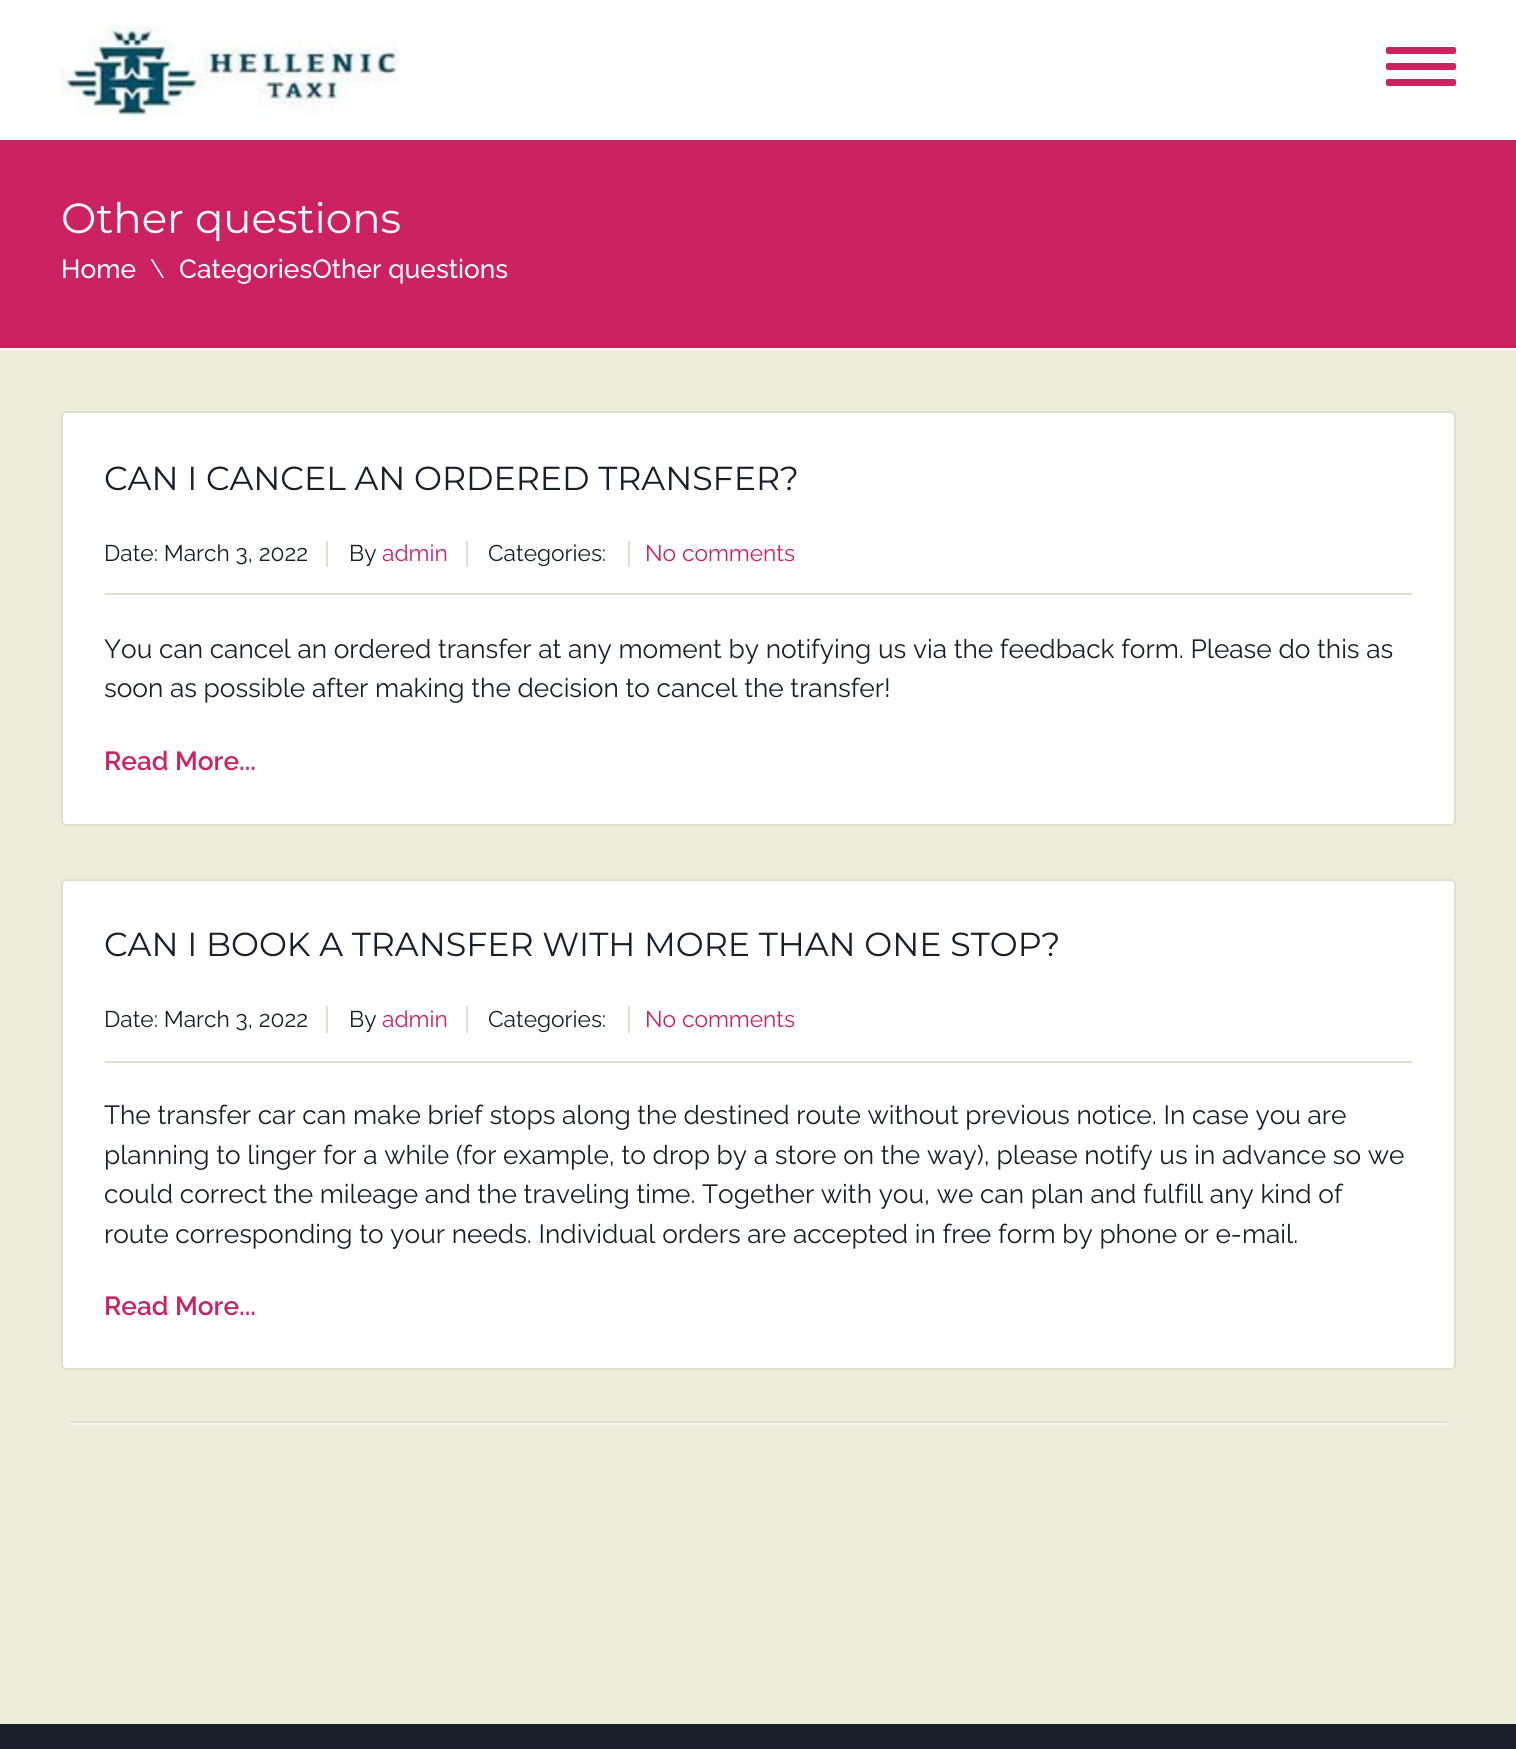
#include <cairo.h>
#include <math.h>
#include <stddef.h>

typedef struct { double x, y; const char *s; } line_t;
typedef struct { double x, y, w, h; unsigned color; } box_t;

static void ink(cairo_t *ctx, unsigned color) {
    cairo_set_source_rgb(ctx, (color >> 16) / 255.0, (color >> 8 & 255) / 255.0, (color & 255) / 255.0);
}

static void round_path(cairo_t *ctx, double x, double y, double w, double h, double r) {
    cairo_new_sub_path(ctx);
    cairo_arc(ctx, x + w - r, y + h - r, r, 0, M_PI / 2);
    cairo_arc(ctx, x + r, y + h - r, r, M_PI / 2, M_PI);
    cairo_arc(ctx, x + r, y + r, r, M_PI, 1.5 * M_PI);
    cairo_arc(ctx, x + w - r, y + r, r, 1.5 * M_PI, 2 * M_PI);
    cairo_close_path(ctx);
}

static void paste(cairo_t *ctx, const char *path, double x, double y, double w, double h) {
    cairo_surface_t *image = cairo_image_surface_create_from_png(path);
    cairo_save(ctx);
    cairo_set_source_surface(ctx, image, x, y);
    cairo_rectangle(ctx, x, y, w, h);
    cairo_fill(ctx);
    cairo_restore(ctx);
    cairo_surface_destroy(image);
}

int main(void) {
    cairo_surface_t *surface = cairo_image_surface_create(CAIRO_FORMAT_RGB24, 1516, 1749);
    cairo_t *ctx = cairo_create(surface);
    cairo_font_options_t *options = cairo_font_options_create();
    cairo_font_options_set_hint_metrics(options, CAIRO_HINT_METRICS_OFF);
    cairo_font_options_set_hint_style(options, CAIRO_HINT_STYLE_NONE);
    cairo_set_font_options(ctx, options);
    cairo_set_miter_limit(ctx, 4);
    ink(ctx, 0xEDEDDC);
    cairo_paint(ctx);
    ink(ctx, 0xFFFFFF);
    cairo_rectangle(ctx, 0, 0, 1516, 140);
    cairo_fill(ctx);
    paste(ctx, "media/1.png", 61, 26, 339, 91);
    ink(ctx, 0xCC2262);
    round_path(ctx, 1386, 47, 70, 7, 2);
    cairo_fill(ctx);
    round_path(ctx, 1386, 63, 70, 7, 2);
    cairo_fill(ctx);
    round_path(ctx, 1386, 79, 70, 7, 2);
    cairo_fill(ctx);
    cairo_rectangle(ctx, 0, 140, 1516, 208);
    cairo_fill(ctx);
    ink(ctx, 0xFFFFFF);
    cairo_rectangle(ctx, 0, 348, 1516, 2);
    cairo_fill(ctx);
    cairo_select_font_face(ctx, "Montserrat", CAIRO_FONT_SLANT_NORMAL, CAIRO_FONT_WEIGHT_NORMAL);
    cairo_set_font_size(ctx, 42);
    cairo_move_to(ctx, 61, 233);
    cairo_show_text(ctx, "Other questions");
    cairo_select_font_face(ctx, "Raleway Medium", CAIRO_FONT_SLANT_NORMAL, CAIRO_FONT_WEIGHT_NORMAL);
    cairo_set_font_size(ctx, 26.25);
    cairo_move_to(ctx, 61, 278);
    cairo_show_text(ctx, "Home");
    cairo_select_font_face(ctx, "Raleway", CAIRO_FONT_SLANT_NORMAL, CAIRO_FONT_WEIGHT_NORMAL);
    cairo_move_to(ctx, 150, 278);
    cairo_show_text(ctx, "\\");
    cairo_select_font_face(ctx, "Raleway Medium", CAIRO_FONT_SLANT_NORMAL, CAIRO_FONT_WEIGHT_NORMAL);
    cairo_move_to(ctx, 179, 278);
    cairo_show_text(ctx, "CategoriesOther questions");
    round_path(ctx, 62, 412, 1393, 413, 4);
    cairo_fill_preserve(ctx);
    ink(ctx, 0xDFDFD0);
    cairo_stroke(ctx);
    cairo_select_font_face(ctx, "Montserrat", CAIRO_FONT_SLANT_NORMAL, CAIRO_FONT_WEIGHT_NORMAL);
    cairo_set_font_size(ctx, 33.25);
    ink(ctx, 0x191F26);
    cairo_move_to(ctx, 104, 490);
    cairo_show_text(ctx, "CAN I CANCEL AN ORDERED TRANSFER?");
    ink(ctx, 0xDFDFD0);
    cairo_rectangle(ctx, 105, 593, 1307, 2);
    cairo_fill(ctx);
    cairo_select_font_face(ctx, "Raleway", CAIRO_FONT_SLANT_NORMAL, CAIRO_FONT_WEIGHT_NORMAL);
    cairo_set_font_size(ctx, 22.75);
    ink(ctx, 0x191F26);
    cairo_move_to(ctx, 104, 561);
    cairo_show_text(ctx, "Date: March 3, 2022");
    ink(ctx, 0xDFDFD0);
    cairo_rectangle(ctx, 326, 541, 2, 26);
    cairo_fill(ctx);
    ink(ctx, 0x191F26);
    cairo_move_to(ctx, 349, 561);
    cairo_show_text(ctx, "By");
    ink(ctx, 0xCC2262);
    cairo_move_to(ctx, 382, 561);
    cairo_show_text(ctx, "admin");
    ink(ctx, 0xDFDFD0);
    cairo_rectangle(ctx, 466, 541, 2, 26);
    cairo_fill(ctx);
    ink(ctx, 0x191F26);
    cairo_move_to(ctx, 488, 561);
    cairo_show_text(ctx, "Categories:");
    ink(ctx, 0xDFDFD0);
    cairo_rectangle(ctx, 628, 541, 2, 26);
    cairo_fill(ctx);
    ink(ctx, 0xCC2262);
    cairo_move_to(ctx, 645, 561);
    cairo_show_text(ctx, "No comments");
    cairo_set_font_size(ctx, 26.25);
    ink(ctx, 0x191F26);
    cairo_move_to(ctx, 104, 658);
    cairo_show_text(ctx, "You can cancel an ordered transfer at any moment by notifying us via the feedback form. Please do this as");
    cairo_move_to(ctx, 104, 697);
    cairo_show_text(ctx, "soon as possible after making the decision to cancel the transfer!");
    cairo_select_font_face(ctx, "Raleway SemiBold", CAIRO_FONT_SLANT_NORMAL, CAIRO_FONT_WEIGHT_NORMAL);
    ink(ctx, 0xCC2262);
    cairo_move_to(ctx, 104, 770);
    cairo_show_text(ctx, "Read More...");
    ink(ctx, 0xFFFFFF);
    round_path(ctx, 62, 880, 1393, 489, 4);
    cairo_fill_preserve(ctx);
    ink(ctx, 0xDFDFD0);
    cairo_stroke(ctx);
    cairo_select_font_face(ctx, "Montserrat", CAIRO_FONT_SLANT_NORMAL, CAIRO_FONT_WEIGHT_NORMAL);
    cairo_set_font_size(ctx, 33.25);
    ink(ctx, 0x191F26);
    cairo_move_to(ctx, 104, 956);
    cairo_show_text(ctx, "CAN I BOOK A TRANSFER WITH MORE THAN ONE STOP?");
    ink(ctx, 0xDFDFD0);
    cairo_rectangle(ctx, 105, 1061, 1307, 2);
    cairo_fill(ctx);
    cairo_select_font_face(ctx, "Raleway", CAIRO_FONT_SLANT_NORMAL, CAIRO_FONT_WEIGHT_NORMAL);
    cairo_set_font_size(ctx, 22.75);
    ink(ctx, 0x191F26);
    cairo_move_to(ctx, 104, 1027);
    cairo_show_text(ctx, "Date: March 3, 2022");
    ink(ctx, 0xDFDFD0);
    cairo_rectangle(ctx, 326, 1006, 2, 27);
    cairo_fill(ctx);
    ink(ctx, 0x191F26);
    cairo_move_to(ctx, 349, 1027);
    cairo_show_text(ctx, "By");
    ink(ctx, 0xCC2262);
    cairo_move_to(ctx, 382, 1027);
    cairo_show_text(ctx, "admin");
    ink(ctx, 0xDFDFD0);
    cairo_rectangle(ctx, 466, 1006, 2, 27);
    cairo_fill(ctx);
    ink(ctx, 0x191F26);
    cairo_move_to(ctx, 488, 1027);
    cairo_show_text(ctx, "Categories:");
    ink(ctx, 0xDFDFD0);
    cairo_rectangle(ctx, 628, 1006, 2, 27);
    cairo_fill(ctx);
    ink(ctx, 0xCC2262);
    cairo_move_to(ctx, 645, 1027);
    cairo_show_text(ctx, "No comments");
    cairo_set_font_size(ctx, 26.25);
    ink(ctx, 0x191F26);
    {
        static const line_t items[] = {
            {104, 1124, "The transfer car can make brief stops along the destined route without previous notice. In case you are"},
            {104, 1164, "planning to linger for a while (for example, to drop by a store on the way), please notify us in advance so we"},
            {104, 1203, "could correct the mileage and the traveling time. Together with you, we can plan and fulfill any kind of"},
            {104, 1243, "route corresponding to your needs. Individual orders are accepted in free form by phone or e-mail."},
        };
        for (size_t i = 0; i < sizeof items / sizeof *items; i++) {
            cairo_move_to(ctx, items[i].x, items[i].y);
            cairo_show_text(ctx, items[i].s);
        }
    }
    cairo_select_font_face(ctx, "Raleway SemiBold", CAIRO_FONT_SLANT_NORMAL, CAIRO_FONT_WEIGHT_NORMAL);
    ink(ctx, 0xCC2262);
    cairo_move_to(ctx, 104, 1315);
    cairo_show_text(ctx, "Read More...");
    {
        static const box_t items[] = {
            {70, 1421, 1377, 2, 0xDFDFD0},
            {70, 1423, 1377, 2, 0xF8F8F1},
            {0, 1724, 1516, 25, 0x191F26},
        };
        for (size_t i = 0; i < sizeof items / sizeof *items; i++) {
            ink(ctx, items[i].color);
            cairo_rectangle(ctx, items[i].x, items[i].y, items[i].w, items[i].h);
            cairo_fill(ctx);
        }
    }
    cairo_surface_write_to_png(surface, "image.png");
    cairo_font_options_destroy(options);
    cairo_destroy(ctx);
    cairo_surface_destroy(surface);
    return 0;
}
